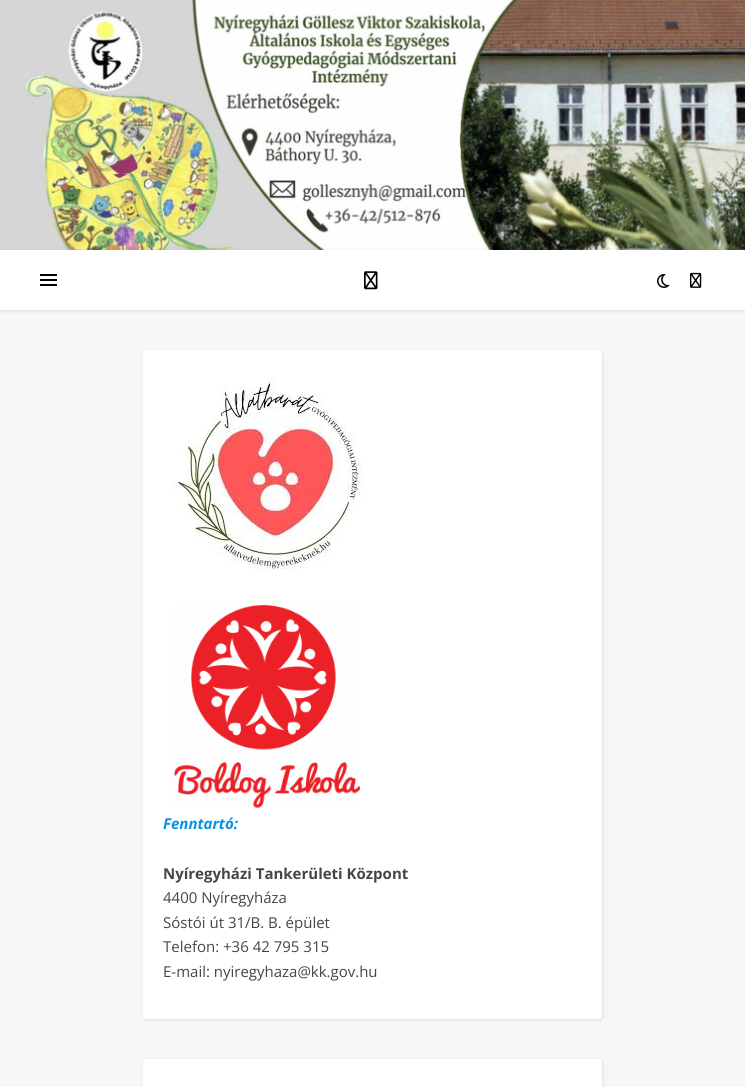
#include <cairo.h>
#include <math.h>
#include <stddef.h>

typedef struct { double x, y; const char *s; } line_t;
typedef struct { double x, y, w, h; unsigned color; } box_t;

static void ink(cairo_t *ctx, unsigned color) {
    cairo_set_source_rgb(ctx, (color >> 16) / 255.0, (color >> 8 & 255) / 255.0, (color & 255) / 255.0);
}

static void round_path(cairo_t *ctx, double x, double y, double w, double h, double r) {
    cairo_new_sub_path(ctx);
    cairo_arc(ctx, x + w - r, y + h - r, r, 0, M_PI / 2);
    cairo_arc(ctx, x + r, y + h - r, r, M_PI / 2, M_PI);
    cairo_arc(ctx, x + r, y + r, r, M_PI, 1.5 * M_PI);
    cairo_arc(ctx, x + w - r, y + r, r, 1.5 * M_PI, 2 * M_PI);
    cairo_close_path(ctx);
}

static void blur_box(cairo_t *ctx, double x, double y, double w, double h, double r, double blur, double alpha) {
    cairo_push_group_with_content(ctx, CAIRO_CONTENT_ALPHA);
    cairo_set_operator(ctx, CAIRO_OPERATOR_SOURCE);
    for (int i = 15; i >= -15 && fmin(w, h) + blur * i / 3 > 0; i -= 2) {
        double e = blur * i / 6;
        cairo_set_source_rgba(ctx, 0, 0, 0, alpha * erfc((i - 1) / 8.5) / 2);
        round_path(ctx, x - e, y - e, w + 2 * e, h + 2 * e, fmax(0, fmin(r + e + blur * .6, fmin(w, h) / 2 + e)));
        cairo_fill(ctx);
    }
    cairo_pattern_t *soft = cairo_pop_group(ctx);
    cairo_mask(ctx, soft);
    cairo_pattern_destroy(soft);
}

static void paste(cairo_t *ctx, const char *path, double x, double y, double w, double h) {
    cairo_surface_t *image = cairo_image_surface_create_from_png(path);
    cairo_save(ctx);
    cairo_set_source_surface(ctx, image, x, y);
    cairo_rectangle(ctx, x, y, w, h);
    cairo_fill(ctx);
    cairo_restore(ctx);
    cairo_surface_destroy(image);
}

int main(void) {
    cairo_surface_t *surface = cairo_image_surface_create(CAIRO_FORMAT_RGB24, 745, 1087);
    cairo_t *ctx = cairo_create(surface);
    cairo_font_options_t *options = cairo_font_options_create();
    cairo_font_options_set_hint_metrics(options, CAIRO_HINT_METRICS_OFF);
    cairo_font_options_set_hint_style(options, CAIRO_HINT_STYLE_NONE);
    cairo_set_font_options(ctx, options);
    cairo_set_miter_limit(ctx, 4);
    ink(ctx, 0xF7F7F7);
    cairo_paint(ctx);
    paste(ctx, "media/1.png", 0, 0, 745, 250);
    ink(ctx, 0x000000);
    blur_box(ctx, 0, 251, 745, 60, 0, 2.5, 0.1);
    {
        static const box_t items[] = {
            {0, 250, 745, 60, 0xFFFFFF},
            {40, 274, 17, 2, 0x000000},
            {40, 279, 17, 2, 0x000000},
            {40, 284, 17, 2, 0x000000},
        };
        for (size_t i = 0; i < sizeof items / sizeof *items; i++) {
            ink(ctx, items[i].color);
            cairo_rectangle(ctx, items[i].x, items[i].y, items[i].w, items[i].h);
            cairo_fill(ctx);
        }
    }
    paste(ctx, "media/2.png", 364, 271, 14, 19);
    paste(ctx, "media/3.png", 657, 274, 13, 14);
    paste(ctx, "media/4.png", 690, 272, 12, 16);
    ink(ctx, 0x000000);
    blur_box(ctx, 144, 351, 459, 669, 3, 1.5, 0.1);
    ink(ctx, 0xFFFFFF);
    round_path(ctx, 143, 350, 459, 669, 3);
    cairo_fill(ctx);
    paste(ctx, "media/5.png", 172, 378, 191, 192);
    paste(ctx, "media/6.png", 174, 605, 187, 203);
    cairo_select_font_face(ctx, "Open Sans", CAIRO_FONT_SLANT_ITALIC, CAIRO_FONT_WEIGHT_BOLD);
    cairo_set_font_size(ctx, 15);
    ink(ctx, 0x0693E3);
    cairo_move_to(ctx, 163, 829);
    cairo_show_text(ctx, "Fenntartó:");
    cairo_select_font_face(ctx, "Open Sans", CAIRO_FONT_SLANT_NORMAL, CAIRO_FONT_WEIGHT_BOLD);
    ink(ctx, 0x464646);
    cairo_move_to(ctx, 163, 879);
    cairo_show_text(ctx, "Nyíregyházi Tankerületi Központ");
    cairo_select_font_face(ctx, "Open Sans", CAIRO_FONT_SLANT_NORMAL, CAIRO_FONT_WEIGHT_NORMAL);
    {
        static const line_t items[] = {
            {163, 903, "4400 Nyíregyháza"},
            {163, 928, "Sóstói út 31/B. B. épület"},
            {163, 952, "Telefon: +36 42 795 315"},
            {163, 977, "E-mail: nyiregyhaza@kk.gov.hu"},
        };
        for (size_t i = 0; i < sizeof items / sizeof *items; i++) {
            cairo_move_to(ctx, items[i].x, items[i].y);
            cairo_show_text(ctx, items[i].s);
        }
    }
    ink(ctx, 0x000000);
    blur_box(ctx, 144, 1060, 459, 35, 3, 1.5, 0.1);
    ink(ctx, 0xFFFFFF);
    round_path(ctx, 143, 1059, 459, 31, 3);
    cairo_fill(ctx);
    cairo_surface_write_to_png(surface, "image.png");
    cairo_font_options_destroy(options);
    cairo_destroy(ctx);
    cairo_surface_destroy(surface);
    return 0;
}
